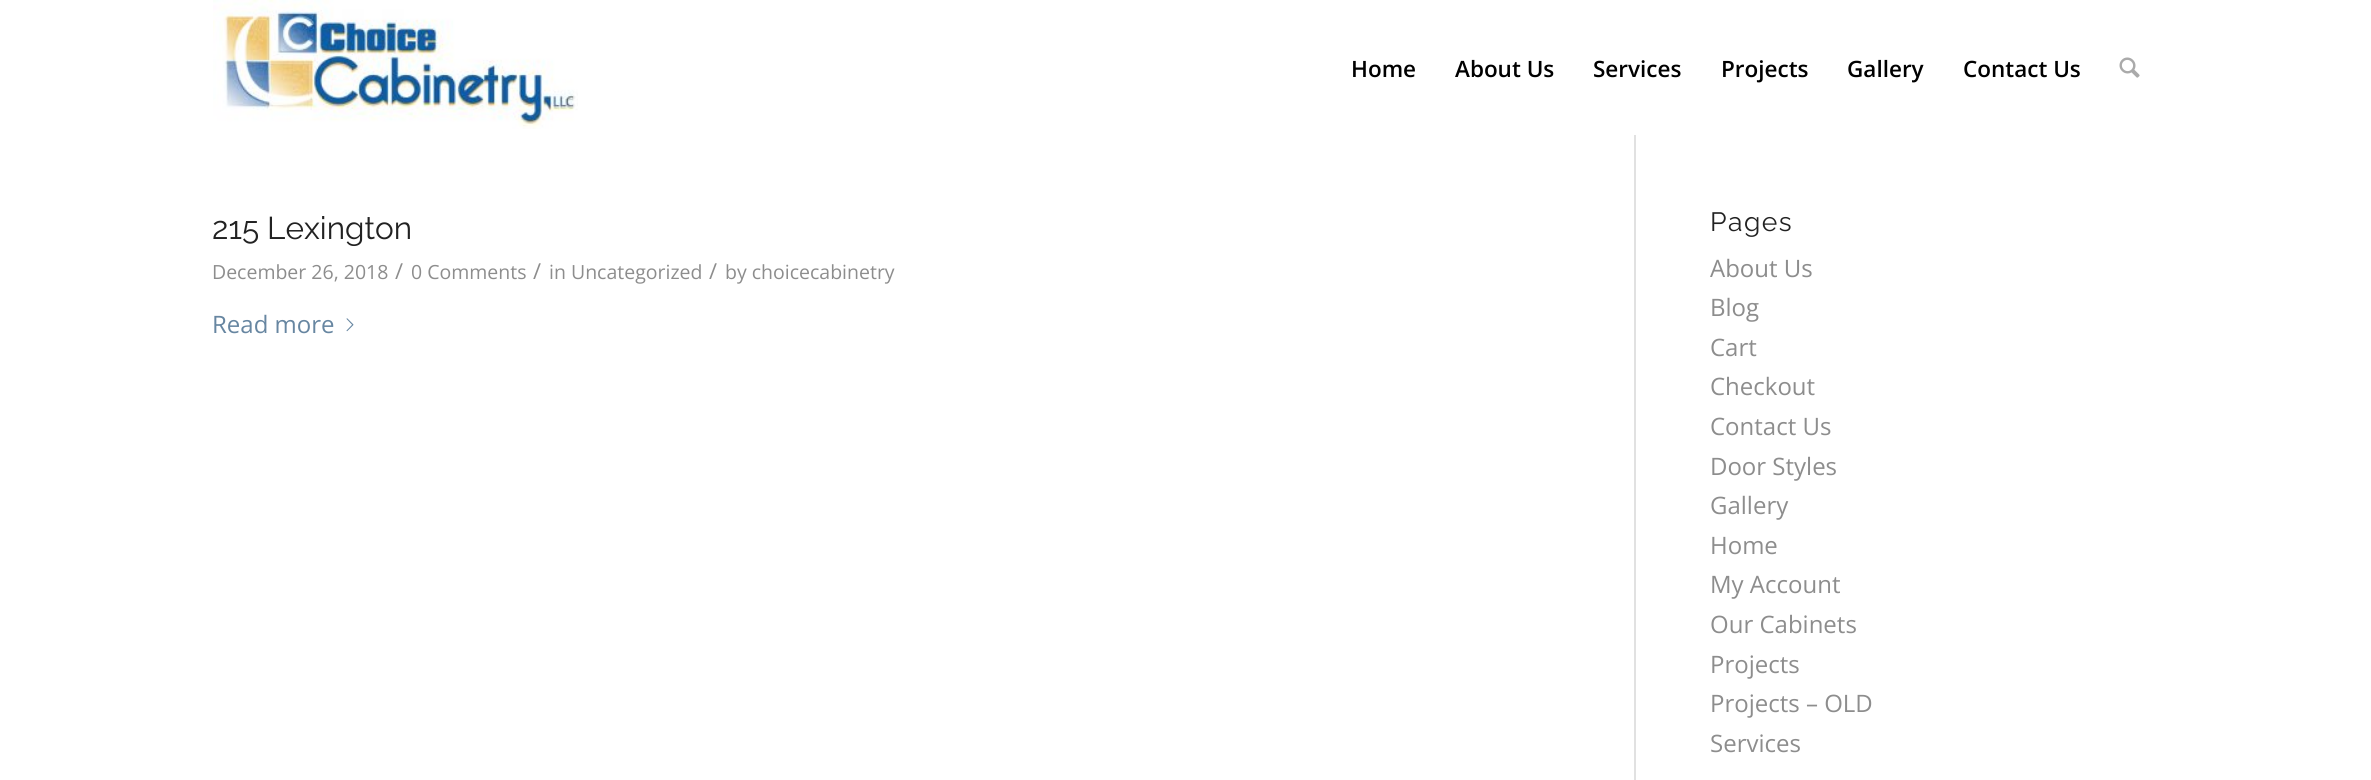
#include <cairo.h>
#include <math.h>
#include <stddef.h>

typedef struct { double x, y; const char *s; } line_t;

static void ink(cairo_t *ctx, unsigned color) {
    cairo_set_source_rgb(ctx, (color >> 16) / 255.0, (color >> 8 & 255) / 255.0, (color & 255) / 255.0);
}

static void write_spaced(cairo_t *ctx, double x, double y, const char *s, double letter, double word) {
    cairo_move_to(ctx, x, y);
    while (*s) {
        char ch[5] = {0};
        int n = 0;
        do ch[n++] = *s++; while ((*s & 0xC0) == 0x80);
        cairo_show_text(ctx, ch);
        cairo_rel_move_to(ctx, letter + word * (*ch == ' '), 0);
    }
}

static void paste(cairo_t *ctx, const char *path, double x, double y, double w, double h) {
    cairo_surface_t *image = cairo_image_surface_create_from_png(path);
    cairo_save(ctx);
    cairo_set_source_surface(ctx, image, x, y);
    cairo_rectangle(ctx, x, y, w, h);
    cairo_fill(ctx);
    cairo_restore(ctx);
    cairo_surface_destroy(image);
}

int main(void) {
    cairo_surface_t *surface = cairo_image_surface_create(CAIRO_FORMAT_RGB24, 2371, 780);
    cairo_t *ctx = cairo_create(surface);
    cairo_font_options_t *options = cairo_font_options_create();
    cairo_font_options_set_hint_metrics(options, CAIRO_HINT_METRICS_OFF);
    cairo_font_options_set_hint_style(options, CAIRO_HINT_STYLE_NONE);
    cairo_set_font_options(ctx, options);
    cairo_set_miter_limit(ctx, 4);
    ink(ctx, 0xFFFFFF);
    cairo_paint(ctx);
    paste(ctx, "media/1.png", 213, 0, 365, 129);
    cairo_select_font_face(ctx, "Open Sans SemiBold", CAIRO_FONT_SLANT_NORMAL, CAIRO_FONT_WEIGHT_NORMAL);
    cairo_set_font_size(ctx, 22.5);
    ink(ctx, 0x000000);
    {
        static const line_t items[] = {
            {1351, 77, "Home"},
            {1455, 77, "About Us"},
            {1593, 77, "Services"},
            {1721, 77, "Projects"},
            {1847, 77, "Gallery"},
            {1963, 77, "Contact Us"},
        };
        for (size_t i = 0; i < sizeof items / sizeof *items; i++) {
            cairo_move_to(ctx, items[i].x, items[i].y);
            cairo_show_text(ctx, items[i].s);
        }
    }
    paste(ctx, "media/2.png", 2119, 57, 21, 21);
    ink(ctx, 0xE1E1E1);
    cairo_rectangle(ctx, 1634, 132, 2, 648);
    cairo_fill(ctx);
    ink(ctx, 0xFFFFFF);
    cairo_rectangle(ctx, 1634, 132, 2, 3);
    cairo_fill(ctx);
    cairo_select_font_face(ctx, "Raleway Thin", CAIRO_FONT_SLANT_NORMAL, CAIRO_FONT_WEIGHT_NORMAL);
    cairo_set_font_size(ctx, 31.5);
    ink(ctx, 0x222222);
    cairo_move_to(ctx, 212, 239);
    cairo_show_text(ctx, "215 Lexington");
    cairo_select_font_face(ctx, "Open Sans", CAIRO_FONT_SLANT_NORMAL, CAIRO_FONT_WEIGHT_NORMAL);
    cairo_set_font_size(ctx, 19.5);
    ink(ctx, 0x8D8D8D);
    cairo_move_to(ctx, 212, 279);
    cairo_show_text(ctx, "December 26, 2018");
    cairo_set_font_size(ctx, 22);
    cairo_move_to(ctx, 395, 279);
    cairo_show_text(ctx, "/");
    cairo_set_font_size(ctx, 19.5);
    cairo_move_to(ctx, 411, 279);
    cairo_show_text(ctx, "0 Comments");
    cairo_set_font_size(ctx, 22);
    cairo_move_to(ctx, 533, 279);
    cairo_show_text(ctx, "/");
    cairo_set_font_size(ctx, 19.5);
    cairo_move_to(ctx, 549, 279);
    cairo_show_text(ctx, "in Uncategorized");
    cairo_set_font_size(ctx, 22);
    cairo_move_to(ctx, 709, 279);
    cairo_show_text(ctx, "/");
    cairo_set_font_size(ctx, 19.5);
    cairo_move_to(ctx, 725, 279);
    cairo_show_text(ctx, "by choicecabinetry");
    cairo_set_font_size(ctx, 24);
    ink(ctx, 0x6786A1);
    cairo_move_to(ctx, 212, 333);
    cairo_show_text(ctx, "Read more");
    paste(ctx, "media/3.png", 346, 318, 8, 14);
    cairo_select_font_face(ctx, "Raleway Thin", CAIRO_FONT_SLANT_NORMAL, CAIRO_FONT_WEIGHT_NORMAL);
    cairo_set_font_size(ctx, 26.5);
    ink(ctx, 0x222222);
    write_spaced(ctx, 1710, 231, "Pages", 1.5, 0);
    cairo_select_font_face(ctx, "Open Sans", CAIRO_FONT_SLANT_NORMAL, CAIRO_FONT_WEIGHT_NORMAL);
    cairo_set_font_size(ctx, 24);
    ink(ctx, 0x8D8D8D);
    {
        static const line_t items[] = {
            {1710, 277, "About Us"},
            {1710, 316, "Blog"},
            {1710, 356, "Cart"},
            {1710, 395, "Checkout"},
            {1710, 435, "Contact Us"},
            {1710, 475, "Door Styles"},
            {1710, 514, "Gallery"},
            {1710, 554, "Home"},
            {1710, 593, "My Account"},
            {1710, 633, "Our Cabinets"},
            {1710, 673, "Projects"},
            {1710, 712, "Projects – OLD"},
            {1710, 752, "Services"},
        };
        for (size_t i = 0; i < sizeof items / sizeof *items; i++) {
            cairo_move_to(ctx, items[i].x, items[i].y);
            cairo_show_text(ctx, items[i].s);
        }
    }
    cairo_surface_write_to_png(surface, "image.png");
    cairo_font_options_destroy(options);
    cairo_destroy(ctx);
    cairo_surface_destroy(surface);
    return 0;
}
